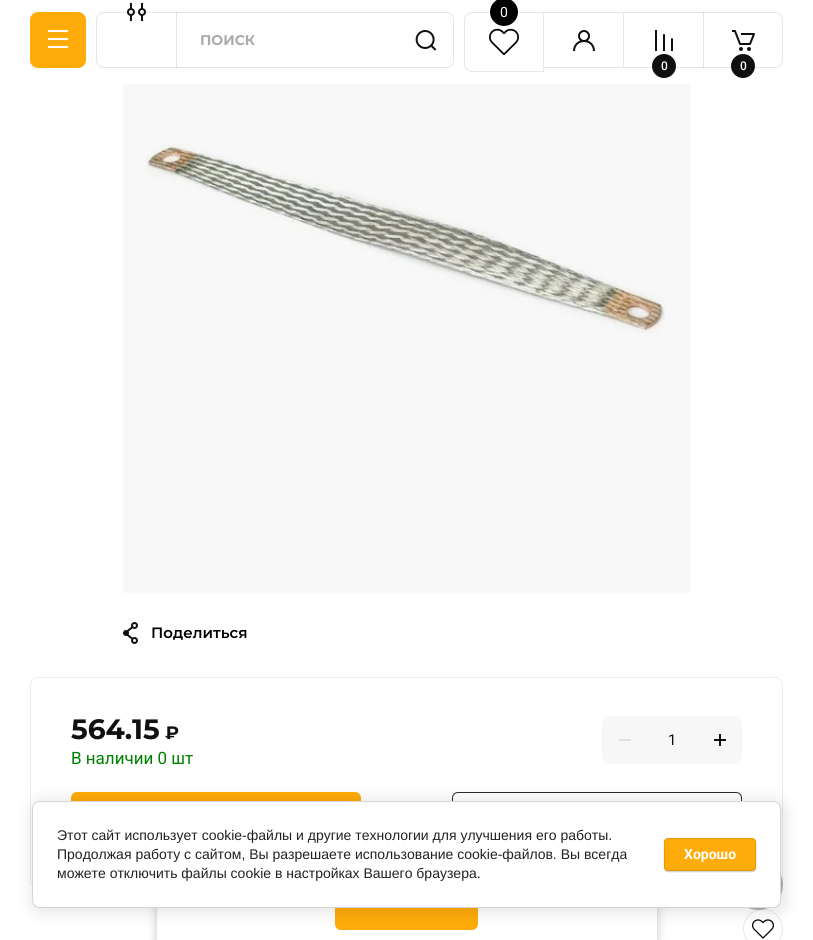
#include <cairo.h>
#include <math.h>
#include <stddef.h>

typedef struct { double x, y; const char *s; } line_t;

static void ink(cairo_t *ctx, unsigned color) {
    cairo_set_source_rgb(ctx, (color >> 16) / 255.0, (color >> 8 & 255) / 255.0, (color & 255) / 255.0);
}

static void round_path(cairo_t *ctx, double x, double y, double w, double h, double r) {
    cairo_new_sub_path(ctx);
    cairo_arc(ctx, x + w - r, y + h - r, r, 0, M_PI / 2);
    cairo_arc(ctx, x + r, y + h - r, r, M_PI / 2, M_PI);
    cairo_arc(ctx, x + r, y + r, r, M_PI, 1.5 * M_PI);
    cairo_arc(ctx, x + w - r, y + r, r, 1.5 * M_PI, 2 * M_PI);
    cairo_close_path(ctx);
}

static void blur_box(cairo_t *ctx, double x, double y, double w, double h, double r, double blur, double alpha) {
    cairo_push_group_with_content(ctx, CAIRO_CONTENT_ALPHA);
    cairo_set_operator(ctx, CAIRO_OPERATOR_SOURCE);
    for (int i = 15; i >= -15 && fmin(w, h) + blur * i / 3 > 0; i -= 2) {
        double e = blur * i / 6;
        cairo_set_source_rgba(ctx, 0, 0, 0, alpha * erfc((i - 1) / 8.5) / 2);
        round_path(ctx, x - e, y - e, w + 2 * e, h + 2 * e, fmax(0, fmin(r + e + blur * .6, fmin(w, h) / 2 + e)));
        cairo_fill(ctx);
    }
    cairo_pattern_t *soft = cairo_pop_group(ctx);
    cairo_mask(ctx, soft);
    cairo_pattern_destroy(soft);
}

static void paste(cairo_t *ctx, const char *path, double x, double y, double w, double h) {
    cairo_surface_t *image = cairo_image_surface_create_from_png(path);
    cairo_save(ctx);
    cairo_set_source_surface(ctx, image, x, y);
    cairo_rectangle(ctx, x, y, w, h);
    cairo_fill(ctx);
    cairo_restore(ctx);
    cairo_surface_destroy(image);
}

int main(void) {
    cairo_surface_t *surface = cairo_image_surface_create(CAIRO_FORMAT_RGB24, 813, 940);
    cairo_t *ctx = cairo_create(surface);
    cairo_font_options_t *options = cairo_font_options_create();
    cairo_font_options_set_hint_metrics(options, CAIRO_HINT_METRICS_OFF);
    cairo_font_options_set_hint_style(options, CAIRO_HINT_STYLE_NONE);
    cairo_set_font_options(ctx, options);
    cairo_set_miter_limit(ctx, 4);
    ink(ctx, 0xFFFFFF);
    cairo_paint(ctx);
    ink(ctx, 0xFFAB09);
    round_path(ctx, 30, 12, 56, 56, 8);
    cairo_fill(ctx);
    paste(ctx, "media/1.png", 48, 30, 20, 18);
    round_path(ctx, 96.5, 12.5, 357, 55, 7.5);
    ink(ctx, 0xE7E7E7);
    cairo_set_line_width(ctx, 1);
    cairo_stroke(ctx);
    paste(ctx, "media/2.png", 127, 3, 19, 18);
    cairo_set_source_rgba(ctx, 0.063, 0.063, 0.063, 0.1);
    cairo_rectangle(ctx, 176, 12, 1, 56);
    cairo_fill(ctx);
    cairo_select_font_face(ctx, "Montserrat", CAIRO_FONT_SLANT_NORMAL, CAIRO_FONT_WEIGHT_BOLD);
    cairo_set_font_size(ctx, 14);
    ink(ctx, 0xABABAB);
    cairo_move_to(ctx, 200, 45);
    cairo_show_text(ctx, "ПОИСК");
    paste(ctx, "media/3.png", 415, 30, 22, 21);
    cairo_new_path(ctx);
    cairo_move_to(ctx, 472, 12.5);
    cairo_line_to(ctx, 543.5, 12.5);
    cairo_line_to(ctx, 543.5, 71.5);
    cairo_line_to(ctx, 472, 71.5);
    cairo_curve_to(ctx, 468, 71.5, 464.5, 68, 464.5, 64);
    cairo_line_to(ctx, 464.5, 20);
    cairo_curve_to(ctx, 464.5, 16, 468, 12.5, 472, 12.5);
    cairo_close_path(ctx);
    ink(ctx, 0xE7E7E7);
    cairo_stroke(ctx);
    paste(ctx, "media/4.png", 489, 28, 30, 28);
    ink(ctx, 0x000000);
    cairo_arc(ctx, 504, 12, 14, 0, 2 * M_PI);
    cairo_fill(ctx);
    cairo_select_font_face(ctx, "Roboto", CAIRO_FONT_SLANT_NORMAL, CAIRO_FONT_WEIGHT_NORMAL);
    ink(ctx, 0xFFFFFF);
    cairo_move_to(ctx, 500, 17);
    cairo_show_text(ctx, "0");
    ink(ctx, 0xE7E7E7);
    cairo_new_path(ctx);
    cairo_move_to(ctx, 544, 12);
    cairo_line_to(ctx, 624, 12);
    cairo_line_to(ctx, 623, 13);
    cairo_line_to(ctx, 544, 13);
    cairo_close_path(ctx);
    cairo_fill(ctx);
    cairo_set_source_rgba(ctx, 0.063, 0.063, 0.063, 0.1);
    cairo_new_path(ctx);
    cairo_move_to(ctx, 624, 12);
    cairo_line_to(ctx, 624, 68);
    cairo_line_to(ctx, 623, 67);
    cairo_line_to(ctx, 623, 13);
    cairo_close_path(ctx);
    cairo_fill(ctx);
    cairo_new_path(ctx);
    cairo_move_to(ctx, 624, 68);
    cairo_line_to(ctx, 544, 68);
    cairo_line_to(ctx, 544, 67);
    cairo_line_to(ctx, 623, 67);
    cairo_close_path(ctx);
    cairo_fill(ctx);
    paste(ctx, "media/5.png", 573, 30, 22, 21);
    ink(ctx, 0xE7E7E7);
    cairo_rectangle(ctx, 624, 12, 80, 1);
    cairo_fill(ctx);
    cairo_rectangle(ctx, 624, 67, 80, 1);
    cairo_fill(ctx);
    paste(ctx, "media/6.png", 655, 30, 18, 21);
    ink(ctx, 0x101010);
    cairo_arc(ctx, 664, 66, 12, 0, 2 * M_PI);
    cairo_fill(ctx);
    cairo_select_font_face(ctx, "Roboto Medium", CAIRO_FONT_SLANT_NORMAL, CAIRO_FONT_WEIGHT_NORMAL);
    cairo_set_font_size(ctx, 12);
    ink(ctx, 0xFFFFFF);
    cairo_move_to(ctx, 661, 70);
    cairo_show_text(ctx, "0");
    cairo_new_path(ctx);
    cairo_move_to(ctx, 703.5, 12.5);
    cairo_line_to(ctx, 775, 12.5);
    cairo_curve_to(ctx, 779, 12.5, 782.5, 16, 782.5, 20);
    cairo_line_to(ctx, 782.5, 60);
    cairo_curve_to(ctx, 782.5, 64, 779, 67.5, 775, 67.5);
    cairo_line_to(ctx, 703.5, 67.5);
    cairo_close_path(ctx);
    cairo_set_source_rgba(ctx, 0.063, 0.063, 0.063, 0.1);
    cairo_stroke(ctx);
    paste(ctx, "media/7.png", 732, 30, 23, 21);
    ink(ctx, 0x101010);
    cairo_arc(ctx, 743, 66, 12, 0, 2 * M_PI);
    cairo_fill(ctx);
    ink(ctx, 0xFFFFFF);
    cairo_move_to(ctx, 740, 70);
    cairo_show_text(ctx, "0");
    paste(ctx, "media/8.png", 146, 144, 520, 190);
    cairo_set_source_rgba(ctx, 0, 0, 0, 0.03);
    cairo_rectangle(ctx, 123, 84, 568, 509);
    cairo_fill(ctx);
    paste(ctx, "media/9.png", 123, 622, 15, 22);
    cairo_select_font_face(ctx, "Montserrat SemiBold", CAIRO_FONT_SLANT_NORMAL, CAIRO_FONT_WEIGHT_NORMAL);
    cairo_set_font_size(ctx, 15);
    ink(ctx, 0x000000);
    cairo_move_to(ctx, 151, 638);
    cairo_show_text(ctx, "Поделиться");
    round_path(ctx, 30.5, 677.5, 752, 211, 7.5);
    ink(ctx, 0xECECEC);
    cairo_stroke(ctx);
    cairo_select_font_face(ctx, "Montserrat", CAIRO_FONT_SLANT_NORMAL, CAIRO_FONT_WEIGHT_BOLD);
    cairo_set_font_size(ctx, 28);
    ink(ctx, 0x101010);
    cairo_move_to(ctx, 71, 739);
    cairo_show_text(ctx, "564.15");
    cairo_set_font_size(ctx, 18);
    cairo_move_to(ctx, 165, 739);
    cairo_show_text(ctx, "₽");
    cairo_select_font_face(ctx, "Roboto", CAIRO_FONT_SLANT_NORMAL, CAIRO_FONT_WEIGHT_NORMAL);
    cairo_set_font_size(ctx, 17);
    ink(ctx, 0x008000);
    cairo_move_to(ctx, 71, 764);
    cairo_show_text(ctx, "В наличии 0 шт");
    ink(ctx, 0xF7F7F7);
    round_path(ctx, 602, 716, 140, 48, 8);
    cairo_fill(ctx);
    ink(ctx, 0xE0E0E0);
    cairo_rectangle(ctx, 619, 739, 12, 2);
    cairo_fill(ctx);
    cairo_set_font_size(ctx, 15);
    ink(ctx, 0x101010);
    cairo_move_to(ctx, 668, 745);
    cairo_show_text(ctx, "1");
    paste(ctx, "media/10.png", 714, 734, 12, 12);
    ink(ctx, 0xFFAB09);
    round_path(ctx, 71, 792, 290, 56, 6);
    cairo_fill(ctx);
    round_path(ctx, 452.5, 792.5, 289, 55, 5.5);
    ink(ctx, 0x2C2C2C);
    cairo_stroke(ctx);
    paste(ctx, "media/11.png", 752, 919, 22, 20);
    cairo_arc(ctx, 763, 929, 19.5, 0, 2 * M_PI);
    ink(ctx, 0xE7E7E7);
    cairo_stroke(ctx);
    cairo_set_source_rgba(ctx, 0.063, 0.063, 0.063, 0.3);
    cairo_arc(ctx, 758, 885, 25, 0, 2 * M_PI);
    cairo_fill(ctx);
    ink(ctx, 0x000000);
    blur_box(ctx, 157, 828, 500, 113, 0, 5, 0.23);
    ink(ctx, 0xFFFFFF);
    cairo_rectangle(ctx, 157, 908, 500, 32);
    cairo_fill(ctx);
    ink(ctx, 0xFFAB09);
    round_path(ctx, 335, 888, 143, 42, 6);
    cairo_fill(ctx);
    ink(ctx, 0x000000);
    blur_box(ctx, 34, 803, 749, 107, 8, 9, 0.14);
    ink(ctx, 0xFFFFFF);
    round_path(ctx, 32.5, 801.5, 748, 106, 7.5);
    cairo_fill_preserve(ctx);
    ink(ctx, 0xD6D6D6);
    cairo_stroke(ctx);
    cairo_select_font_face(ctx, "Liberation Sans", CAIRO_FONT_SLANT_NORMAL, CAIRO_FONT_WEIGHT_NORMAL);
    cairo_set_font_size(ctx, 14);
    ink(ctx, 0x212121);
    {
        static const line_t items[] = {
            {57, 840, "Этот сайт использует cookie-файлы и другие технологии для улучшения его работы."},
            {57, 859, "Продолжая работу с сайтом, Вы разрешаете использование cookie-файлов. Вы всегда"},
            {57, 878, "можете отключить файлы cookie в настройках Вашего браузера."},
        };
        for (size_t i = 0; i < sizeof items / sizeof *items; i++) {
            cairo_move_to(ctx, items[i].x, items[i].y);
            cairo_show_text(ctx, items[i].s);
        }
    }
    ink(ctx, 0x000000);
    blur_box(ctx, 664, 839, 92, 33, 4, 0.5, 0.2);
    ink(ctx, 0xFFAB09);
    round_path(ctx, 664, 838, 92, 33, 4);
    cairo_fill(ctx);
    round_path(ctx, 664.5, 838.5, 91, 32, 3.5);
    cairo_set_source_rgba(ctx, 0, 0, 0, 0.1);
    cairo_stroke(ctx);
    cairo_select_font_face(ctx, "Roboto", CAIRO_FONT_SLANT_NORMAL, CAIRO_FONT_WEIGHT_BOLD);
    ink(ctx, 0xFFFFFF);
    cairo_move_to(ctx, 684, 859);
    cairo_show_text(ctx, "Хорошо");
    cairo_surface_write_to_png(surface, "image.png");
    cairo_font_options_destroy(options);
    cairo_destroy(ctx);
    cairo_surface_destroy(surface);
    return 0;
}
